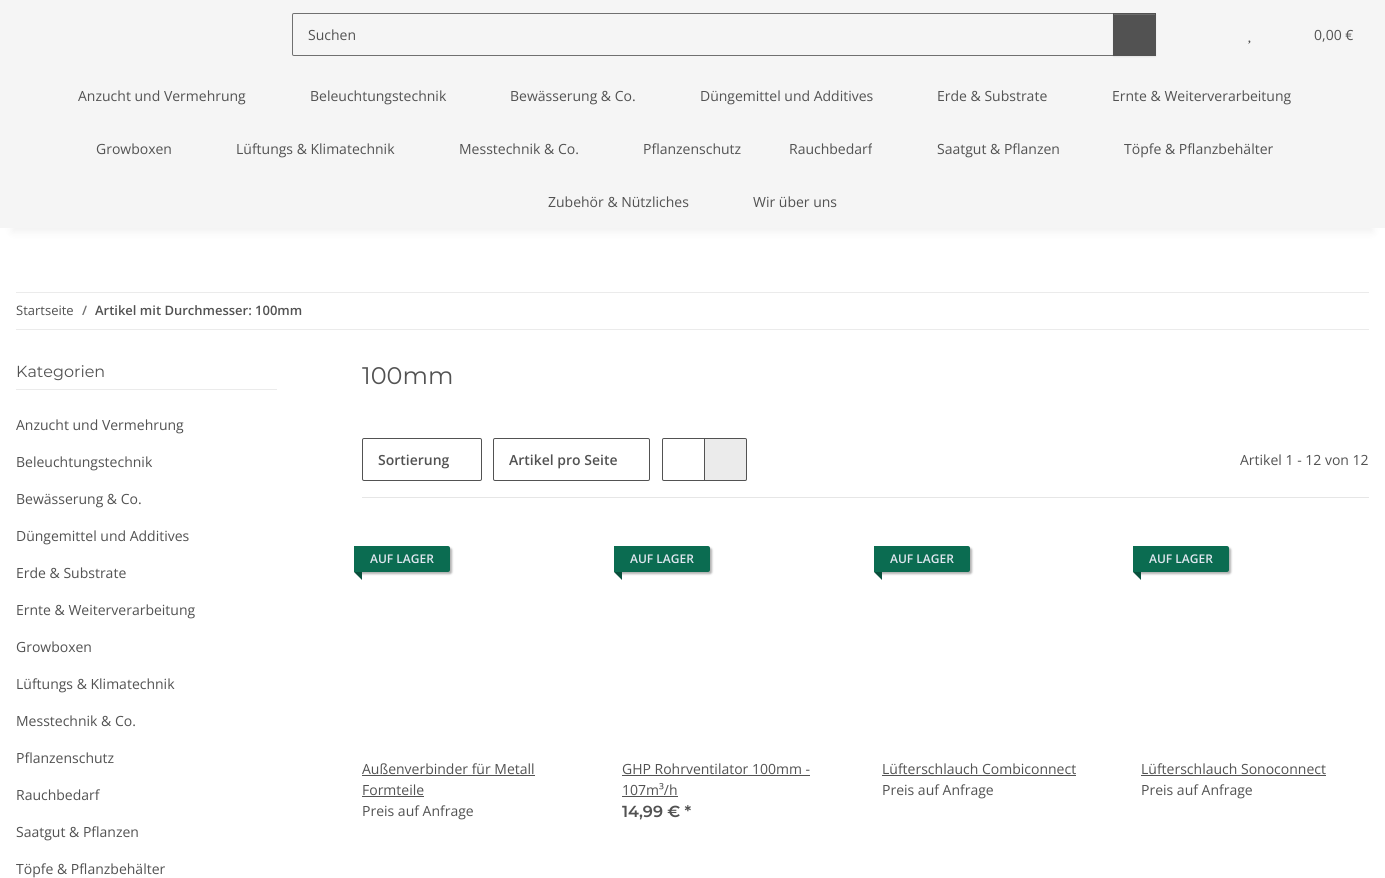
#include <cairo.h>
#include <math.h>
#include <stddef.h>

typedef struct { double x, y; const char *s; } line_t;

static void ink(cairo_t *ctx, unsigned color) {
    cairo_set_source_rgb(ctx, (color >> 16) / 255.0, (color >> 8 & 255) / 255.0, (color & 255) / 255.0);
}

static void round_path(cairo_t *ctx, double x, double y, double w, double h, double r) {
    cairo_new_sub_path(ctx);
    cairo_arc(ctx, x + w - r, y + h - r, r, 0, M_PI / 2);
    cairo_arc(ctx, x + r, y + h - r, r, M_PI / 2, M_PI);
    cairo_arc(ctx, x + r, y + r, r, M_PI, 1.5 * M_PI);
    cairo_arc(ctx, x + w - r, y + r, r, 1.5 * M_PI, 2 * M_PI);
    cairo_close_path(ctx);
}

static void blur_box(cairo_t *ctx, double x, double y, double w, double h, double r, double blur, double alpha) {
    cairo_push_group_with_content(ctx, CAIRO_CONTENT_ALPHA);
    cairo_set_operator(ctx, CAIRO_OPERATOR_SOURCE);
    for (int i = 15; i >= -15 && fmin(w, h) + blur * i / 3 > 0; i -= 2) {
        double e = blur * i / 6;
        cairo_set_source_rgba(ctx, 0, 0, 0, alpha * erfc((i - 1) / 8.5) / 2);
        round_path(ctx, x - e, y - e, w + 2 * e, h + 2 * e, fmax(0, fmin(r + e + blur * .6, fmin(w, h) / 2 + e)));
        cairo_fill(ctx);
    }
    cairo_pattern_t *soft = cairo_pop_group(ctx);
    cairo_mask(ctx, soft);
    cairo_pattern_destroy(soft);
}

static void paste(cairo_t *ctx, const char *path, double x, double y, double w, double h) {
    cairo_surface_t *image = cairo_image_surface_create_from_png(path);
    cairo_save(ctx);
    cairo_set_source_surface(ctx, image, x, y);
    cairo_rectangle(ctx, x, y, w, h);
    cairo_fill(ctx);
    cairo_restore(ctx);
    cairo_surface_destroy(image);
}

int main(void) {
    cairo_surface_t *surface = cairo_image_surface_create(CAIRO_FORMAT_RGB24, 1385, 878);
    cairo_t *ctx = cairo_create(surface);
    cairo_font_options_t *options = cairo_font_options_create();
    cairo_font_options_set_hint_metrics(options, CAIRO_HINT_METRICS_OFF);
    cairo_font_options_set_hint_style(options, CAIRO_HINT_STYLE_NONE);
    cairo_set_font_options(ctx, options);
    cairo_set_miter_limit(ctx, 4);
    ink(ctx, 0xFFFFFF);
    cairo_paint(ctx);
    ink(ctx, 0x000000);
    blur_box(ctx, 12, 28, 1361, 204, 0, 4.5, 0.06);
    ink(ctx, 0xF5F5F5);
    cairo_rectangle(ctx, 0, 0, 1385, 228);
    cairo_fill(ctx);
    cairo_new_path(ctx);
    cairo_move_to(ctx, 294, 13.5);
    cairo_line_to(ctx, 1113.5, 13.5);
    cairo_line_to(ctx, 1113.5, 55.5);
    cairo_line_to(ctx, 294, 55.5);
    cairo_curve_to(ctx, 293, 55.5, 292.5, 55, 292.5, 54);
    cairo_line_to(ctx, 292.5, 15);
    cairo_curve_to(ctx, 292.5, 14, 293, 13.5, 294, 13.5);
    cairo_close_path(ctx);
    ink(ctx, 0x707070);
    cairo_set_line_width(ctx, 1);
    cairo_stroke(ctx);
    cairo_select_font_face(ctx, "Open Sans", CAIRO_FONT_SLANT_NORMAL, CAIRO_FONT_WEIGHT_NORMAL);
    cairo_set_font_size(ctx, 14);
    ink(ctx, 0x525252);
    cairo_move_to(ctx, 308, 40);
    cairo_show_text(ctx, "Suchen");
    ink(ctx, 0x000000);
    blur_box(ctx, 1113, 14, 43, 43, 0, 0.5, 0.07);
    ink(ctx, 0x525252);
    cairo_rectangle(ctx, 1113, 13, 43, 43);
    cairo_fill(ctx);
    ink(ctx, 0x6C6C6C);
    cairo_rectangle(ctx, 1114, 14, 41, 1);
    cairo_fill(ctx);
    paste(ctx, "media/1.png", 1248, 40, 3, 4);
    ink(ctx, 0x525252);
    {
        static const line_t items[] = {
            {1314, 40, "0,00 €"},
            {78, 101, "Anzucht und Vermehrung"},
            {310, 101, "Beleuchtungstechnik"},
            {510, 101, "Bewässerung & Co."},
            {700, 101, "Düngemittel und Additives"},
            {937, 101, "Erde & Substrate"},
            {1112, 101, "Ernte & Weiterverarbeitung"},
            {96, 154, "Growboxen"},
            {236, 154, "Lüftungs & Klimatechnik"},
            {459, 154, "Messtechnik & Co."},
            {643, 154, "Pflanzenschutz"},
        };
        for (size_t i = 0; i < sizeof items / sizeof *items; i++) {
            cairo_move_to(ctx, items[i].x, items[i].y);
            cairo_show_text(ctx, items[i].s);
        }
    }
    cairo_save(ctx);
    cairo_rectangle(ctx, 789, 138, 83, 21);
    cairo_clip(ctx);
    cairo_move_to(ctx, 789, 154);
    cairo_show_text(ctx, "Rauchbedarf");
    cairo_restore(ctx);
    {
        static const line_t items[] = {
            {937, 154, "Saatgut & Pflanzen"},
            {1124, 154, "Töpfe & Pflanzbehälter"},
            {548, 207, "Zubehör & Nützliches"},
            {753, 207, "Wir über uns"},
        };
        for (size_t i = 0; i < sizeof items / sizeof *items; i++) {
            cairo_move_to(ctx, items[i].x, items[i].y);
            cairo_show_text(ctx, items[i].s);
        }
    }
    ink(ctx, 0xEBEBEB);
    cairo_rectangle(ctx, 16, 292, 1353, 1);
    cairo_fill(ctx);
    cairo_rectangle(ctx, 16, 329, 1353, 1);
    cairo_fill(ctx);
    cairo_set_font_size(ctx, 13);
    ink(ctx, 0x525252);
    cairo_move_to(ctx, 16, 315);
    cairo_show_text(ctx, "Startseite");
    cairo_select_font_face(ctx, "Open Sans SemiBold", CAIRO_FONT_SLANT_NORMAL, CAIRO_FONT_WEIGHT_NORMAL);
    ink(ctx, 0x707070);
    cairo_move_to(ctx, 82, 315);
    cairo_show_text(ctx, "/");
    ink(ctx, 0x525252);
    cairo_move_to(ctx, 95, 315);
    cairo_show_text(ctx, "Artikel mit Durchmesser: 100mm");
    ink(ctx, 0xEBEBEB);
    cairo_rectangle(ctx, 16, 389, 261, 1);
    cairo_fill(ctx);
    cairo_select_font_face(ctx, "Montserrat", CAIRO_FONT_SLANT_NORMAL, CAIRO_FONT_WEIGHT_NORMAL);
    cairo_set_font_size(ctx, 16);
    ink(ctx, 0x525252);
    cairo_move_to(ctx, 16, 377);
    cairo_show_text(ctx, "Kategorien");
    cairo_select_font_face(ctx, "Open Sans", CAIRO_FONT_SLANT_NORMAL, CAIRO_FONT_WEIGHT_NORMAL);
    cairo_set_font_size(ctx, 14);
    {
        static const line_t items[] = {
            {16, 430, "Anzucht und Vermehrung"},
            {16, 467, "Beleuchtungstechnik"},
            {16, 504, "Bewässerung & Co."},
            {16, 541, "Düngemittel und Additives"},
            {16, 578, "Erde & Substrate"},
            {16, 615, "Ernte & Weiterverarbeitung"},
            {16, 652, "Growboxen"},
            {16, 689, "Lüftungs & Klimatechnik"},
            {16, 726, "Messtechnik & Co."},
            {16, 763, "Pflanzenschutz"},
            {16, 800, "Rauchbedarf"},
            {16, 837, "Saatgut & Pflanzen"},
            {16, 874, "Töpfe & Pflanzbehälter"},
        };
        for (size_t i = 0; i < sizeof items / sizeof *items; i++) {
            cairo_move_to(ctx, items[i].x, items[i].y);
            cairo_show_text(ctx, items[i].s);
        }
    }
    cairo_select_font_face(ctx, "Montserrat", CAIRO_FONT_SLANT_NORMAL, CAIRO_FONT_WEIGHT_NORMAL);
    cairo_set_font_size(ctx, 24);
    cairo_move_to(ctx, 362, 384);
    cairo_show_text(ctx, "100mm");
    round_path(ctx, 362.5, 438.5, 119, 42, 1.5);
    cairo_stroke(ctx);
    cairo_select_font_face(ctx, "Open Sans SemiBold", CAIRO_FONT_SLANT_NORMAL, CAIRO_FONT_WEIGHT_NORMAL);
    cairo_set_font_size(ctx, 14);
    cairo_move_to(ctx, 378, 465);
    cairo_show_text(ctx, "Sortierung");
    round_path(ctx, 493.5, 438.5, 156, 42, 1.5);
    cairo_stroke(ctx);
    cairo_move_to(ctx, 509, 465);
    cairo_show_text(ctx, "Artikel pro Seite");
    cairo_new_path(ctx);
    cairo_move_to(ctx, 664, 438.5);
    cairo_line_to(ctx, 704.5, 438.5);
    cairo_line_to(ctx, 704.5, 480.5);
    cairo_line_to(ctx, 664, 480.5);
    cairo_curve_to(ctx, 663, 480.5, 662.5, 480, 662.5, 479);
    cairo_line_to(ctx, 662.5, 440);
    cairo_curve_to(ctx, 662.5, 439, 663, 438.5, 664, 438.5);
    cairo_close_path(ctx);
    cairo_stroke(ctx);
    ink(ctx, 0xEBEBEB);
    cairo_new_path(ctx);
    cairo_move_to(ctx, 704.5, 438.5);
    cairo_line_to(ctx, 745, 438.5);
    cairo_curve_to(ctx, 746, 438.5, 746.5, 439, 746.5, 440);
    cairo_line_to(ctx, 746.5, 479);
    cairo_curve_to(ctx, 746.5, 480, 746, 480.5, 745, 480.5);
    cairo_line_to(ctx, 704.5, 480.5);
    cairo_close_path(ctx);
    cairo_fill_preserve(ctx);
    ink(ctx, 0x525252);
    cairo_stroke(ctx);
    cairo_select_font_face(ctx, "Open Sans", CAIRO_FONT_SLANT_NORMAL, CAIRO_FONT_WEIGHT_NORMAL);
    cairo_move_to(ctx, 1240, 465);
    cairo_show_text(ctx, "Artikel 1 - 12 von 12");
    ink(ctx, 0xE6E6E6);
    cairo_rectangle(ctx, 362, 497, 1007, 1);
    cairo_fill(ctx);
    ink(ctx, 0x000000);
    blur_box(ctx, 356, 548, 96, 26, 2, 1, 0.3);
    ink(ctx, 0x0B6C51);
    cairo_new_path(ctx);
    cairo_move_to(ctx, 354, 546);
    cairo_line_to(ctx, 448, 546);
    cairo_curve_to(ctx, 449, 546, 450, 547, 450, 548);
    cairo_line_to(ctx, 450, 570);
    cairo_curve_to(ctx, 450, 571, 449, 572, 448, 572);
    cairo_line_to(ctx, 354, 572);
    cairo_close_path(ctx);
    cairo_fill(ctx);
    cairo_select_font_face(ctx, "Open Sans SemiBold", CAIRO_FONT_SLANT_NORMAL, CAIRO_FONT_WEIGHT_NORMAL);
    cairo_set_font_size(ctx, 12);
    ink(ctx, 0xE1E7F0);
    cairo_move_to(ctx, 370, 563);
    cairo_show_text(ctx, "AUF LAGER");
    ink(ctx, 0x08503C);
    cairo_new_path(ctx);
    cairo_move_to(ctx, 362, 572);
    cairo_line_to(ctx, 362, 580);
    cairo_line_to(ctx, 354, 572);
    cairo_close_path(ctx);
    cairo_fill(ctx);
    cairo_select_font_face(ctx, "Open Sans", CAIRO_FONT_SLANT_NORMAL, CAIRO_FONT_WEIGHT_NORMAL);
    cairo_set_font_size(ctx, 14);
    ink(ctx, 0x525252);
    cairo_move_to(ctx, 362, 774);
    cairo_show_text(ctx, "Außenverbinder für Metall");
    cairo_rectangle(ctx, 362, 775, 173, 1);
    cairo_fill(ctx);
    cairo_move_to(ctx, 362, 795);
    cairo_show_text(ctx, "Formteile");
    cairo_rectangle(ctx, 362, 796, 62, 1);
    cairo_fill(ctx);
    cairo_move_to(ctx, 362, 816);
    cairo_show_text(ctx, "Preis auf Anfrage");
    ink(ctx, 0x000000);
    blur_box(ctx, 616, 548, 96, 26, 2, 1, 0.3);
    ink(ctx, 0x0B6C51);
    cairo_new_path(ctx);
    cairo_move_to(ctx, 614, 546);
    cairo_line_to(ctx, 708, 546);
    cairo_curve_to(ctx, 709, 546, 710, 547, 710, 548);
    cairo_line_to(ctx, 710, 570);
    cairo_curve_to(ctx, 710, 571, 709, 572, 708, 572);
    cairo_line_to(ctx, 614, 572);
    cairo_close_path(ctx);
    cairo_fill(ctx);
    cairo_select_font_face(ctx, "Open Sans SemiBold", CAIRO_FONT_SLANT_NORMAL, CAIRO_FONT_WEIGHT_NORMAL);
    cairo_set_font_size(ctx, 12);
    ink(ctx, 0xE1E7F0);
    cairo_move_to(ctx, 630, 563);
    cairo_show_text(ctx, "AUF LAGER");
    ink(ctx, 0x08503C);
    cairo_new_path(ctx);
    cairo_move_to(ctx, 622, 572);
    cairo_line_to(ctx, 622, 580);
    cairo_line_to(ctx, 614, 572);
    cairo_close_path(ctx);
    cairo_fill(ctx);
    cairo_select_font_face(ctx, "Open Sans", CAIRO_FONT_SLANT_NORMAL, CAIRO_FONT_WEIGHT_NORMAL);
    cairo_set_font_size(ctx, 14);
    ink(ctx, 0x525252);
    cairo_move_to(ctx, 622, 774);
    cairo_show_text(ctx, "GHP Rohrventilator 100mm -");
    cairo_rectangle(ctx, 622, 775, 188, 1);
    cairo_fill(ctx);
    cairo_move_to(ctx, 622, 795);
    cairo_show_text(ctx, "107m³/h");
    cairo_rectangle(ctx, 622, 796, 56, 1);
    cairo_fill(ctx);
    cairo_select_font_face(ctx, "Montserrat SemiBold", CAIRO_FONT_SLANT_NORMAL, CAIRO_FONT_WEIGHT_NORMAL);
    cairo_set_font_size(ctx, 16);
    cairo_move_to(ctx, 622, 817);
    cairo_show_text(ctx, "14,99 € *");
    ink(ctx, 0x000000);
    blur_box(ctx, 876, 548, 96, 26, 2, 1, 0.3);
    ink(ctx, 0x0B6C51);
    cairo_new_path(ctx);
    cairo_move_to(ctx, 874, 546);
    cairo_line_to(ctx, 968, 546);
    cairo_curve_to(ctx, 969, 546, 970, 547, 970, 548);
    cairo_line_to(ctx, 970, 570);
    cairo_curve_to(ctx, 970, 571, 969, 572, 968, 572);
    cairo_line_to(ctx, 874, 572);
    cairo_close_path(ctx);
    cairo_fill(ctx);
    cairo_select_font_face(ctx, "Open Sans SemiBold", CAIRO_FONT_SLANT_NORMAL, CAIRO_FONT_WEIGHT_NORMAL);
    cairo_set_font_size(ctx, 12);
    ink(ctx, 0xE1E7F0);
    cairo_move_to(ctx, 890, 563);
    cairo_show_text(ctx, "AUF LAGER");
    ink(ctx, 0x08503C);
    cairo_new_path(ctx);
    cairo_move_to(ctx, 882, 572);
    cairo_line_to(ctx, 882, 580);
    cairo_line_to(ctx, 874, 572);
    cairo_close_path(ctx);
    cairo_fill(ctx);
    cairo_select_font_face(ctx, "Open Sans", CAIRO_FONT_SLANT_NORMAL, CAIRO_FONT_WEIGHT_NORMAL);
    cairo_set_font_size(ctx, 14);
    ink(ctx, 0x525252);
    cairo_move_to(ctx, 882, 774);
    cairo_show_text(ctx, "Lüfterschlauch Combiconnect");
    cairo_rectangle(ctx, 882, 775, 194, 1);
    cairo_fill(ctx);
    cairo_move_to(ctx, 882, 795);
    cairo_show_text(ctx, "Preis auf Anfrage");
    ink(ctx, 0x000000);
    blur_box(ctx, 1135, 548, 96, 26, 2, 1, 0.3);
    ink(ctx, 0x0B6C51);
    cairo_new_path(ctx);
    cairo_move_to(ctx, 1133, 546);
    cairo_line_to(ctx, 1227, 546);
    cairo_curve_to(ctx, 1228, 546, 1229, 547, 1229, 548);
    cairo_line_to(ctx, 1229, 570);
    cairo_curve_to(ctx, 1229, 571, 1228, 572, 1227, 572);
    cairo_line_to(ctx, 1133, 572);
    cairo_close_path(ctx);
    cairo_fill(ctx);
    cairo_select_font_face(ctx, "Open Sans SemiBold", CAIRO_FONT_SLANT_NORMAL, CAIRO_FONT_WEIGHT_NORMAL);
    cairo_set_font_size(ctx, 12);
    ink(ctx, 0xE1E7F0);
    cairo_move_to(ctx, 1149, 563);
    cairo_show_text(ctx, "AUF LAGER");
    ink(ctx, 0x08503C);
    cairo_new_path(ctx);
    cairo_move_to(ctx, 1141, 572);
    cairo_line_to(ctx, 1141, 580);
    cairo_line_to(ctx, 1133, 572);
    cairo_close_path(ctx);
    cairo_fill(ctx);
    cairo_select_font_face(ctx, "Open Sans", CAIRO_FONT_SLANT_NORMAL, CAIRO_FONT_WEIGHT_NORMAL);
    cairo_set_font_size(ctx, 14);
    ink(ctx, 0x525252);
    cairo_move_to(ctx, 1141, 774);
    cairo_show_text(ctx, "Lüfterschlauch Sonoconnect");
    cairo_rectangle(ctx, 1141, 775, 185, 1);
    cairo_fill(ctx);
    cairo_move_to(ctx, 1141, 795);
    cairo_show_text(ctx, "Preis auf Anfrage");
    cairo_surface_write_to_png(surface, "image.png");
    cairo_font_options_destroy(options);
    cairo_destroy(ctx);
    cairo_surface_destroy(surface);
    return 0;
}
